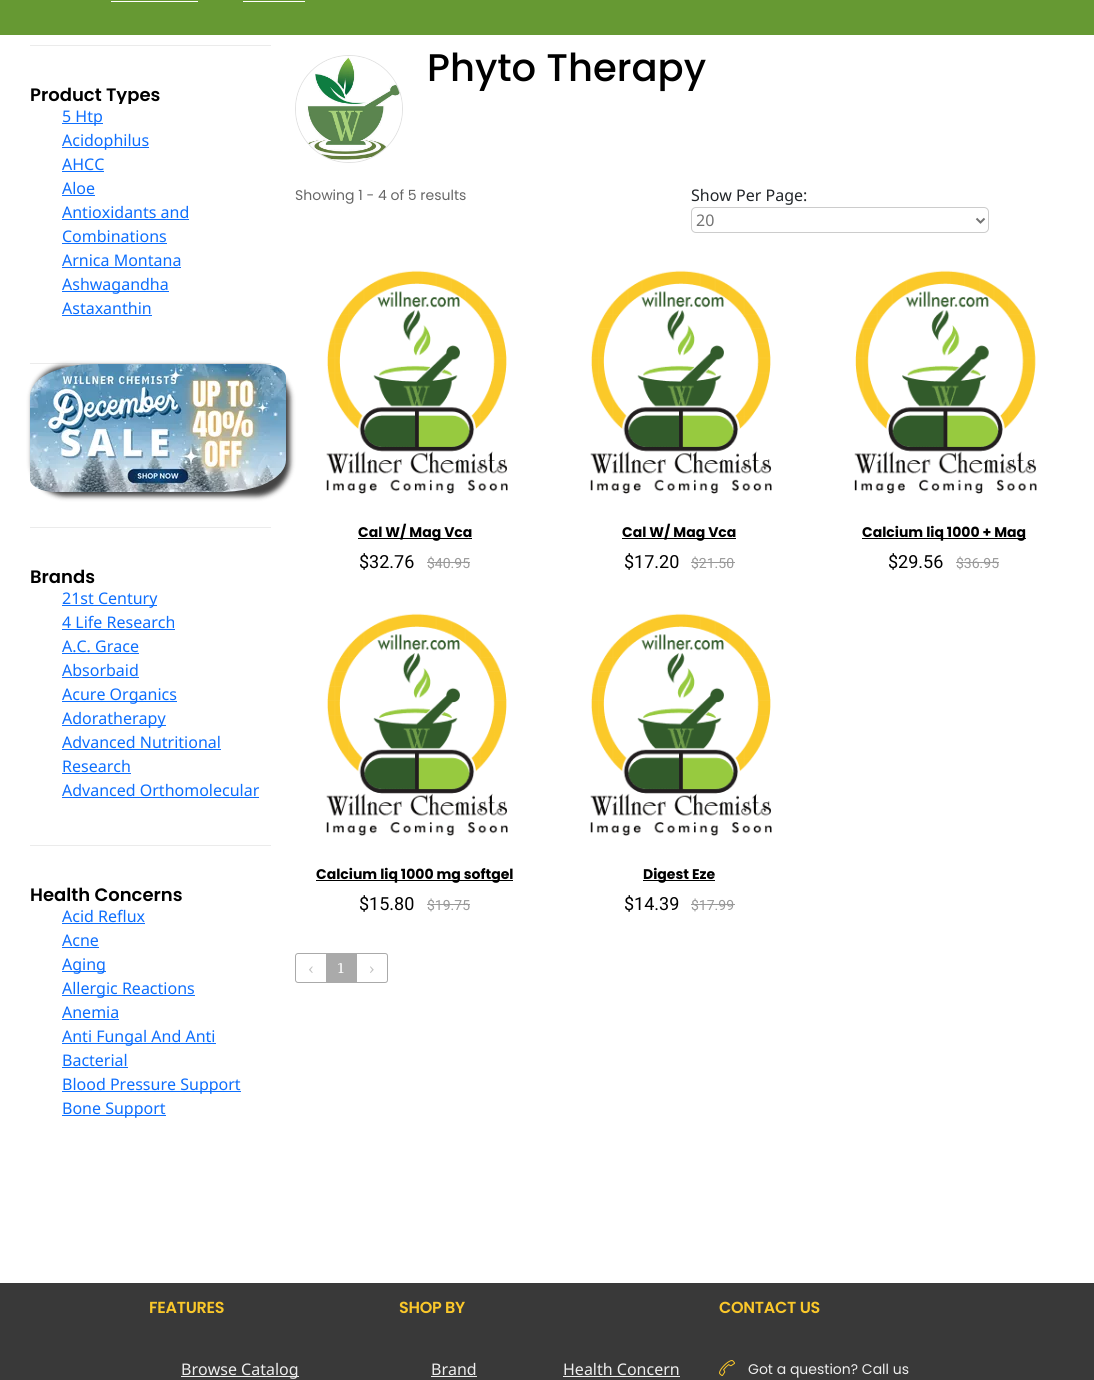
#include <cairo.h>
#include <math.h>
#include <stddef.h>

typedef struct { double x, y, w, h; unsigned color; } box_t;

static void ink(cairo_t *ctx, unsigned color) {
    cairo_set_source_rgb(ctx, (color >> 16) / 255.0, (color >> 8 & 255) / 255.0, (color & 255) / 255.0);
}

static void write_spaced(cairo_t *ctx, double x, double y, const char *s, double letter, double word) {
    cairo_move_to(ctx, x, y);
    while (*s) {
        char ch[5] = {0};
        int n = 0;
        do ch[n++] = *s++; while ((*s & 0xC0) == 0x80);
        cairo_show_text(ctx, ch);
        cairo_rel_move_to(ctx, letter + word * (*ch == ' '), 0);
    }
}

static void round_path(cairo_t *ctx, double x, double y, double w, double h, double r) {
    cairo_new_sub_path(ctx);
    cairo_arc(ctx, x + w - r, y + h - r, r, 0, M_PI / 2);
    cairo_arc(ctx, x + r, y + h - r, r, M_PI / 2, M_PI);
    cairo_arc(ctx, x + r, y + r, r, M_PI, 1.5 * M_PI);
    cairo_arc(ctx, x + w - r, y + r, r, 1.5 * M_PI, 2 * M_PI);
    cairo_close_path(ctx);
}

static void blur_box(cairo_t *ctx, double x, double y, double w, double h, double r, double blur, double alpha) {
    cairo_push_group_with_content(ctx, CAIRO_CONTENT_ALPHA);
    cairo_set_operator(ctx, CAIRO_OPERATOR_SOURCE);
    for (int i = 15; i >= -15 && fmin(w, h) + blur * i / 3 > 0; i -= 2) {
        double e = blur * i / 6;
        cairo_set_source_rgba(ctx, 0, 0, 0, alpha * erfc((i - 1) / 8.5) / 2);
        round_path(ctx, x - e, y - e, w + 2 * e, h + 2 * e, fmax(0, fmin(r + e + blur * .6, fmin(w, h) / 2 + e)));
        cairo_fill(ctx);
    }
    cairo_pattern_t *soft = cairo_pop_group(ctx);
    cairo_mask(ctx, soft);
    cairo_pattern_destroy(soft);
}

static void paste(cairo_t *ctx, const char *path, double x, double y, double w, double h) {
    cairo_surface_t *image = cairo_image_surface_create_from_png(path);
    cairo_save(ctx);
    cairo_set_source_surface(ctx, image, x, y);
    cairo_rectangle(ctx, x, y, w, h);
    cairo_fill(ctx);
    cairo_restore(ctx);
    cairo_surface_destroy(image);
}

int main(void) {
    cairo_surface_t *surface = cairo_image_surface_create(CAIRO_FORMAT_RGB24, 1094, 1380);
    cairo_t *ctx = cairo_create(surface);
    cairo_font_options_t *options = cairo_font_options_create();
    cairo_font_options_set_hint_metrics(options, CAIRO_HINT_METRICS_OFF);
    cairo_font_options_set_hint_style(options, CAIRO_HINT_STYLE_NONE);
    cairo_set_font_options(ctx, options);
    cairo_set_miter_limit(ctx, 4);
    ink(ctx, 0xFFFFFF);
    cairo_paint(ctx);
    {
        static const box_t items[] = {
            {0, 0, 1094, 35, 0x669933},
            {111, 1, 87, 1, 0xFFFFFF},
            {243, 1, 62, 1, 0xFFFFFF},
            {30, 45, 241, 1, 0xEBEBEB},
        };
        for (size_t i = 0; i < sizeof items / sizeof *items; i++) {
            ink(ctx, items[i].color);
            cairo_rectangle(ctx, items[i].x, items[i].y, items[i].w, items[i].h);
            cairo_fill(ctx);
        }
    }
    cairo_select_font_face(ctx, "Poppins SemiBold", CAIRO_FONT_SLANT_NORMAL, CAIRO_FONT_WEIGHT_NORMAL);
    cairo_set_font_size(ctx, 18);
    ink(ctx, 0x000000);
    cairo_move_to(ctx, 30, 101);
    cairo_show_text(ctx, "Product Types");
    ink(ctx, 0xFFFFFF);
    cairo_rectangle(ctx, 118, 104, 13, 2);
    cairo_fill(ctx);
    ink(ctx, 0x0D6EFD);
    cairo_rectangle(ctx, 62, 123, 41, 1);
    cairo_fill(ctx);
    cairo_select_font_face(ctx, "Noto Sans", CAIRO_FONT_SLANT_NORMAL, CAIRO_FONT_WEIGHT_NORMAL);
    cairo_set_font_size(ctx, 16);
    cairo_move_to(ctx, 62, 122);
    cairo_show_text(ctx, "5 Htp");
    cairo_rectangle(ctx, 62, 147, 87, 1);
    cairo_fill(ctx);
    cairo_move_to(ctx, 62, 146);
    cairo_show_text(ctx, "Acidophilus");
    cairo_move_to(ctx, 62, 170);
    cairo_show_text(ctx, "AHCC");
    cairo_rectangle(ctx, 62, 171, 42, 1);
    cairo_fill(ctx);
    cairo_move_to(ctx, 62, 194);
    cairo_show_text(ctx, "Aloe");
    cairo_rectangle(ctx, 62, 195, 33, 1);
    cairo_fill(ctx);
    cairo_move_to(ctx, 62, 218);
    cairo_show_text(ctx, "Antioxidants and");
    cairo_rectangle(ctx, 62, 219, 127, 1);
    cairo_fill(ctx);
    cairo_move_to(ctx, 62, 242);
    cairo_show_text(ctx, "Combinations");
    cairo_rectangle(ctx, 62, 243, 105, 1);
    cairo_fill(ctx);
    cairo_move_to(ctx, 62, 266);
    cairo_show_text(ctx, "Arnica Montana");
    cairo_rectangle(ctx, 62, 267, 119, 1);
    cairo_fill(ctx);
    cairo_rectangle(ctx, 62, 291, 107, 1);
    cairo_fill(ctx);
    cairo_move_to(ctx, 62, 290);
    cairo_show_text(ctx, "Ashwagandha");
    cairo_move_to(ctx, 62, 314);
    cairo_show_text(ctx, "Astaxanthin");
    cairo_rectangle(ctx, 62, 315, 90, 1);
    cairo_fill(ctx);
    ink(ctx, 0xEBEBEB);
    cairo_rectangle(ctx, 30, 363, 241, 1);
    cairo_fill(ctx);
    ink(ctx, 0x000000);
    blur_box(ctx, 32, 366, 258, 130, 33, 2.5, 0.74);
    paste(ctx, "media/1.png", 30, 364, 256, 128);
    ink(ctx, 0xEBEBEB);
    cairo_rectangle(ctx, 30, 527, 241, 1);
    cairo_fill(ctx);
    cairo_select_font_face(ctx, "Poppins SemiBold", CAIRO_FONT_SLANT_NORMAL, CAIRO_FONT_WEIGHT_NORMAL);
    cairo_set_font_size(ctx, 18);
    ink(ctx, 0x000000);
    cairo_move_to(ctx, 30, 583);
    cairo_show_text(ctx, "Brands");
    ink(ctx, 0x0D6EFD);
    cairo_rectangle(ctx, 62, 605, 95, 1);
    cairo_fill(ctx);
    cairo_select_font_face(ctx, "Noto Sans", CAIRO_FONT_SLANT_NORMAL, CAIRO_FONT_WEIGHT_NORMAL);
    cairo_set_font_size(ctx, 16);
    cairo_move_to(ctx, 62, 604);
    cairo_show_text(ctx, "21st Century");
    cairo_move_to(ctx, 62, 628);
    cairo_show_text(ctx, "4 Life Research");
    cairo_rectangle(ctx, 62, 629, 113, 1);
    cairo_fill(ctx);
    cairo_move_to(ctx, 62, 652);
    cairo_show_text(ctx, "A.C. Grace");
    cairo_rectangle(ctx, 62, 653, 77, 1);
    cairo_fill(ctx);
    cairo_move_to(ctx, 62, 676);
    cairo_show_text(ctx, "Absorbaid");
    cairo_rectangle(ctx, 62, 677, 77, 1);
    cairo_fill(ctx);
    cairo_rectangle(ctx, 62, 701, 115, 1);
    cairo_fill(ctx);
    cairo_move_to(ctx, 62, 700);
    cairo_show_text(ctx, "Acure Organics");
    cairo_rectangle(ctx, 62, 725, 104, 1);
    cairo_fill(ctx);
    cairo_move_to(ctx, 62, 724);
    cairo_show_text(ctx, "Adoratherapy");
    cairo_move_to(ctx, 62, 748);
    cairo_show_text(ctx, "Advanced Nutritional");
    cairo_rectangle(ctx, 62, 749, 159, 1);
    cairo_fill(ctx);
    cairo_move_to(ctx, 62, 772);
    cairo_show_text(ctx, "Research");
    cairo_rectangle(ctx, 62, 773, 69, 1);
    cairo_fill(ctx);
    cairo_move_to(ctx, 62, 796);
    cairo_show_text(ctx, "Advanced Orthomolecular");
    cairo_rectangle(ctx, 62, 797, 197, 1);
    cairo_fill(ctx);
    ink(ctx, 0xEBEBEB);
    cairo_rectangle(ctx, 30, 845, 241, 1);
    cairo_fill(ctx);
    cairo_select_font_face(ctx, "Poppins SemiBold", CAIRO_FONT_SLANT_NORMAL, CAIRO_FONT_WEIGHT_NORMAL);
    cairo_set_font_size(ctx, 18);
    ink(ctx, 0x000000);
    cairo_move_to(ctx, 30, 901);
    cairo_show_text(ctx, "Health Concerns");
    cairo_select_font_face(ctx, "Noto Sans", CAIRO_FONT_SLANT_NORMAL, CAIRO_FONT_WEIGHT_NORMAL);
    cairo_set_font_size(ctx, 16);
    ink(ctx, 0x0D6EFD);
    cairo_move_to(ctx, 62, 922);
    cairo_show_text(ctx, "Acid Reflux");
    cairo_rectangle(ctx, 62, 923, 83, 1);
    cairo_fill(ctx);
    cairo_move_to(ctx, 62, 946);
    cairo_show_text(ctx, "Acne");
    cairo_rectangle(ctx, 62, 947, 37, 1);
    cairo_fill(ctx);
    cairo_rectangle(ctx, 62, 971, 44, 1);
    cairo_fill(ctx);
    cairo_move_to(ctx, 62, 970);
    cairo_show_text(ctx, "Aging");
    cairo_rectangle(ctx, 62, 995, 133, 1);
    cairo_fill(ctx);
    cairo_move_to(ctx, 62, 994);
    cairo_show_text(ctx, "Allergic Reactions");
    cairo_move_to(ctx, 62, 1018);
    cairo_show_text(ctx, "Anemia");
    cairo_rectangle(ctx, 62, 1019, 57, 1);
    cairo_fill(ctx);
    cairo_rectangle(ctx, 62, 1043, 154, 1);
    cairo_fill(ctx);
    cairo_move_to(ctx, 62, 1042);
    cairo_show_text(ctx, "Anti Fungal And Anti");
    cairo_move_to(ctx, 62, 1066);
    cairo_show_text(ctx, "Bacterial");
    cairo_rectangle(ctx, 62, 1067, 66, 1);
    cairo_fill(ctx);
    cairo_rectangle(ctx, 62, 1091, 179, 1);
    cairo_fill(ctx);
    cairo_move_to(ctx, 62, 1090);
    cairo_show_text(ctx, "Blood Pressure Support");
    cairo_rectangle(ctx, 62, 1115, 104, 1);
    cairo_fill(ctx);
    cairo_move_to(ctx, 62, 1114);
    cairo_show_text(ctx, "Bone Support");
    cairo_new_path(ctx);
    cairo_arc(ctx, 349, 109, 53.5, 0, 2 * M_PI);
    ink(ctx, 0xE1E1E1);
    cairo_set_line_width(ctx, 1);
    cairo_stroke(ctx);
    paste(ctx, "media/2.png", 296, 56, 106, 106);
    cairo_select_font_face(ctx, "Poppins Medium", CAIRO_FONT_SLANT_NORMAL, CAIRO_FONT_WEIGHT_NORMAL);
    cairo_set_font_size(ctx, 38.5);
    ink(ctx, 0x000000);
    cairo_move_to(ctx, 427, 81);
    cairo_show_text(ctx, "Phyto Therapy");
    cairo_select_font_face(ctx, "Poppins", CAIRO_FONT_SLANT_NORMAL, CAIRO_FONT_WEIGHT_NORMAL);
    cairo_set_font_size(ctx, 14);
    ink(ctx, 0x666666);
    cairo_move_to(ctx, 295, 200);
    cairo_show_text(ctx, "Showing 1 - 4 of 5 results");
    cairo_select_font_face(ctx, "Noto Sans", CAIRO_FONT_SLANT_NORMAL, CAIRO_FONT_WEIGHT_NORMAL);
    cairo_set_font_size(ctx, 16);
    ink(ctx, 0x212529);
    cairo_move_to(ctx, 691, 201);
    cairo_show_text(ctx, "Show Per Page:");
    round_path(ctx, 691.5, 207.5, 297, 25, 4.5);
    ink(ctx, 0xCCCCCC);
    cairo_stroke(ctx);
    cairo_new_path(ctx);
    cairo_move_to(ctx, 976.5, 218.5);
    cairo_line_to(ctx, 980.5, 222.5);
    cairo_line_to(ctx, 984.5, 218.5);
    ink(ctx, 0x737373);
    cairo_set_line_width(ctx, 2);
    cairo_stroke(ctx);
    cairo_move_to(ctx, 696, 226);
    cairo_show_text(ctx, "20");
    paste(ctx, "media/3.png", 326, 270, 182, 224);
    ink(ctx, 0x000000);
    cairo_rectangle(ctx, 358, 538, 114, 1);
    cairo_fill(ctx);
    cairo_select_font_face(ctx, "Poppins", CAIRO_FONT_SLANT_NORMAL, CAIRO_FONT_WEIGHT_BOLD);
    cairo_set_font_size(ctx, 14);
    cairo_move_to(ctx, 358, 537);
    cairo_show_text(ctx, "Cal W/ Mag Vca");
    cairo_select_font_face(ctx, "Heebo", CAIRO_FONT_SLANT_NORMAL, CAIRO_FONT_WEIGHT_NORMAL);
    cairo_set_font_size(ctx, 18);
    cairo_move_to(ctx, 359, 568);
    cairo_show_text(ctx, "$32.76");
    cairo_set_font_size(ctx, 14);
    ink(ctx, 0x999999);
    cairo_move_to(ctx, 427, 568);
    cairo_show_text(ctx, "$40.95");
    cairo_rectangle(ctx, 427, 562, 43, 1);
    cairo_fill(ctx);
    paste(ctx, "media/3.png", 590, 270, 182, 224);
    ink(ctx, 0x000000);
    cairo_rectangle(ctx, 622, 538, 114, 1);
    cairo_fill(ctx);
    cairo_select_font_face(ctx, "Poppins", CAIRO_FONT_SLANT_NORMAL, CAIRO_FONT_WEIGHT_BOLD);
    cairo_move_to(ctx, 622, 537);
    cairo_show_text(ctx, "Cal W/ Mag Vca");
    cairo_select_font_face(ctx, "Heebo", CAIRO_FONT_SLANT_NORMAL, CAIRO_FONT_WEIGHT_NORMAL);
    cairo_set_font_size(ctx, 18);
    cairo_move_to(ctx, 624, 568);
    cairo_show_text(ctx, "$17.20");
    cairo_set_font_size(ctx, 14);
    ink(ctx, 0x999999);
    cairo_move_to(ctx, 691, 568);
    cairo_show_text(ctx, "$21.50");
    cairo_rectangle(ctx, 691, 562, 44, 1);
    cairo_fill(ctx);
    paste(ctx, "media/4.png", 854, 270, 183, 224);
    ink(ctx, 0x000000);
    cairo_rectangle(ctx, 862, 538, 164, 1);
    cairo_fill(ctx);
    cairo_select_font_face(ctx, "Poppins", CAIRO_FONT_SLANT_NORMAL, CAIRO_FONT_WEIGHT_BOLD);
    cairo_move_to(ctx, 862, 537);
    cairo_show_text(ctx, "Calcium liq 1000 + Mag");
    cairo_select_font_face(ctx, "Heebo", CAIRO_FONT_SLANT_NORMAL, CAIRO_FONT_WEIGHT_NORMAL);
    cairo_set_font_size(ctx, 18);
    cairo_move_to(ctx, 888, 568);
    cairo_show_text(ctx, "$29.56");
    cairo_set_font_size(ctx, 14);
    ink(ctx, 0x999999);
    cairo_move_to(ctx, 956, 568);
    cairo_show_text(ctx, "$36.95");
    cairo_rectangle(ctx, 956, 562, 43, 1);
    cairo_fill(ctx);
    paste(ctx, "media/5.png", 326, 613, 182, 223);
    ink(ctx, 0x000000);
    cairo_rectangle(ctx, 316, 880, 197, 1);
    cairo_fill(ctx);
    cairo_select_font_face(ctx, "Poppins", CAIRO_FONT_SLANT_NORMAL, CAIRO_FONT_WEIGHT_BOLD);
    cairo_move_to(ctx, 316, 879);
    cairo_show_text(ctx, "Calcium liq 1000 mg softgel");
    cairo_select_font_face(ctx, "Heebo", CAIRO_FONT_SLANT_NORMAL, CAIRO_FONT_WEIGHT_NORMAL);
    cairo_set_font_size(ctx, 18);
    cairo_move_to(ctx, 359, 910);
    cairo_show_text(ctx, "$15.80");
    cairo_set_font_size(ctx, 14);
    ink(ctx, 0x999999);
    cairo_move_to(ctx, 427, 910);
    cairo_show_text(ctx, "$19.75");
    cairo_rectangle(ctx, 427, 904, 43, 1);
    cairo_fill(ctx);
    paste(ctx, "media/5.png", 590, 613, 182, 223);
    ink(ctx, 0x000000);
    cairo_rectangle(ctx, 643, 880, 72, 1);
    cairo_fill(ctx);
    cairo_select_font_face(ctx, "Poppins", CAIRO_FONT_SLANT_NORMAL, CAIRO_FONT_WEIGHT_BOLD);
    cairo_move_to(ctx, 643, 879);
    cairo_show_text(ctx, "Digest Eze");
    cairo_select_font_face(ctx, "Heebo", CAIRO_FONT_SLANT_NORMAL, CAIRO_FONT_WEIGHT_NORMAL);
    cairo_set_font_size(ctx, 18);
    cairo_move_to(ctx, 624, 910);
    cairo_show_text(ctx, "$14.39");
    cairo_set_font_size(ctx, 14);
    ink(ctx, 0x999999);
    cairo_move_to(ctx, 691, 910);
    cairo_show_text(ctx, "$17.99");
    cairo_rectangle(ctx, 691, 904, 44, 1);
    cairo_fill(ctx);
    ink(ctx, 0xAAAAAA);
    cairo_set_fill_rule(ctx, CAIRO_FILL_RULE_EVEN_ODD);
    cairo_new_path(ctx);
    cairo_move_to(ctx, 298, 953);
    cairo_line_to(ctx, 326, 953);
    cairo_line_to(ctx, 326, 983);
    cairo_line_to(ctx, 298, 983);
    cairo_curve_to(ctx, 296.5, 983, 295, 981.5, 295, 980);
    cairo_line_to(ctx, 295, 956);
    cairo_curve_to(ctx, 295, 954.5, 296.5, 953, 298, 953);
    cairo_close_path(ctx);
    cairo_move_to(ctx, 298, 954);
    cairo_line_to(ctx, 326, 954);
    cairo_line_to(ctx, 326, 982);
    cairo_line_to(ctx, 298, 982);
    cairo_curve_to(ctx, 297, 982, 296, 981, 296, 980);
    cairo_line_to(ctx, 296, 956);
    cairo_curve_to(ctx, 296, 955, 297, 954, 298, 954);
    cairo_close_path(ctx);
    cairo_fill(ctx);
    cairo_select_font_face(ctx, "Marmelad", CAIRO_FONT_SLANT_NORMAL, CAIRO_FONT_WEIGHT_NORMAL);
    ink(ctx, 0xC2C2C2);
    cairo_move_to(ctx, 308, 973);
    cairo_show_text(ctx, "‹");
    ink(ctx, 0xAAAAAA);
    cairo_rectangle(ctx, 326, 953, 30, 30);
    cairo_fill(ctx);
    ink(ctx, 0xFFFFFF);
    cairo_move_to(ctx, 337, 973);
    cairo_show_text(ctx, "1");
    cairo_new_path(ctx);
    cairo_move_to(ctx, 356.5, 953.5);
    cairo_line_to(ctx, 385, 953.5);
    cairo_curve_to(ctx, 386.5, 953.5, 387.5, 954.5, 387.5, 956);
    cairo_line_to(ctx, 387.5, 980);
    cairo_curve_to(ctx, 387.5, 981.5, 386.5, 982.5, 385, 982.5);
    cairo_line_to(ctx, 356.5, 982.5);
    cairo_close_path(ctx);
    ink(ctx, 0xAAAAAA);
    cairo_set_line_width(ctx, 1);
    cairo_stroke(ctx);
    ink(ctx, 0xC2C2C2);
    cairo_move_to(ctx, 369, 973);
    cairo_show_text(ctx, "›");
    ink(ctx, 0x393939);
    cairo_rectangle(ctx, 0, 1283, 1094, 97);
    cairo_fill(ctx);
    cairo_select_font_face(ctx, "Poppins SemiBold", CAIRO_FONT_SLANT_NORMAL, CAIRO_FONT_WEIGHT_NORMAL);
    cairo_set_font_size(ctx, 16);
    ink(ctx, 0xFBC82A);
    write_spaced(ctx, 149, 1313, "FEATURES", -0.25, 0);
    ink(ctx, 0xEEEEEE);
    cairo_rectangle(ctx, 181, 1376, 118, 1);
    cairo_fill(ctx);
    cairo_select_font_face(ctx, "Noto Sans", CAIRO_FONT_SLANT_NORMAL, CAIRO_FONT_WEIGHT_NORMAL);
    cairo_move_to(ctx, 181, 1375);
    cairo_show_text(ctx, "Browse Catalog");
    cairo_select_font_face(ctx, "Poppins SemiBold", CAIRO_FONT_SLANT_NORMAL, CAIRO_FONT_WEIGHT_NORMAL);
    ink(ctx, 0xFBC82A);
    write_spaced(ctx, 399, 1313, "SHOP BY", -0.25, 0);
    cairo_select_font_face(ctx, "Noto Sans", CAIRO_FONT_SLANT_NORMAL, CAIRO_FONT_WEIGHT_NORMAL);
    ink(ctx, 0xEEEEEE);
    cairo_move_to(ctx, 431, 1375);
    cairo_show_text(ctx, "Brand");
    cairo_rectangle(ctx, 431, 1376, 46, 1);
    cairo_fill(ctx);
    cairo_move_to(ctx, 563, 1375);
    cairo_show_text(ctx, "Health Concern");
    cairo_rectangle(ctx, 563, 1376, 117, 1);
    cairo_fill(ctx);
    cairo_select_font_face(ctx, "Poppins SemiBold", CAIRO_FONT_SLANT_NORMAL, CAIRO_FONT_WEIGHT_NORMAL);
    ink(ctx, 0xFBC82A);
    write_spaced(ctx, 719, 1313, "CONTACT US", -0.25, 0);
    paste(ctx, "media/6.png", 719, 1360, 16, 16);
    cairo_select_font_face(ctx, "Poppins", CAIRO_FONT_SLANT_NORMAL, CAIRO_FONT_WEIGHT_NORMAL);
    cairo_set_font_size(ctx, 14);
    ink(ctx, 0xEEEEEE);
    cairo_move_to(ctx, 748, 1374);
    cairo_show_text(ctx, "Got a question? Call us");
    cairo_surface_write_to_png(surface, "image.png");
    cairo_font_options_destroy(options);
    cairo_destroy(ctx);
    cairo_surface_destroy(surface);
    return 0;
}
